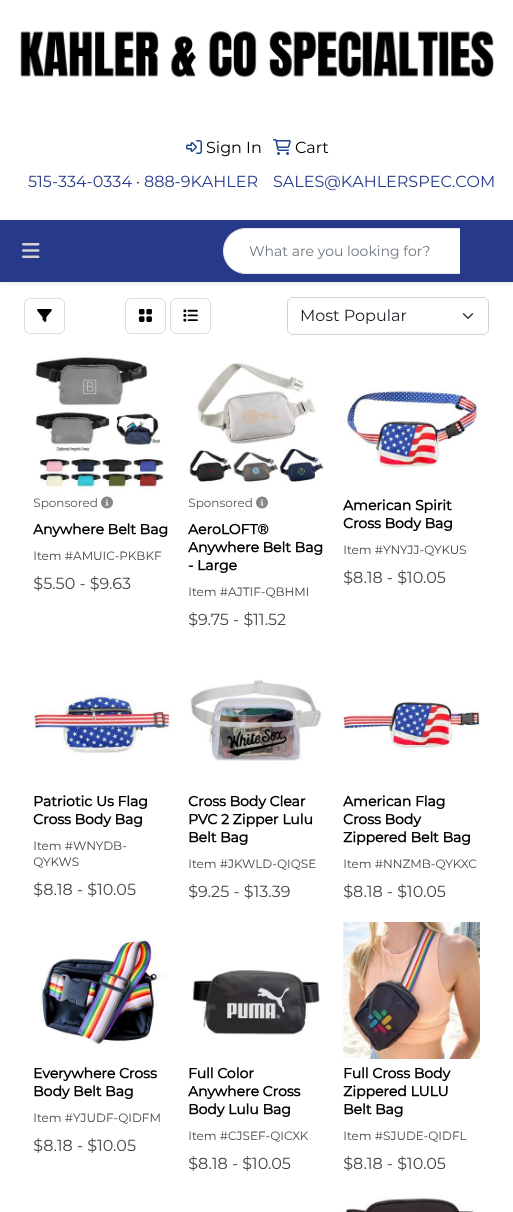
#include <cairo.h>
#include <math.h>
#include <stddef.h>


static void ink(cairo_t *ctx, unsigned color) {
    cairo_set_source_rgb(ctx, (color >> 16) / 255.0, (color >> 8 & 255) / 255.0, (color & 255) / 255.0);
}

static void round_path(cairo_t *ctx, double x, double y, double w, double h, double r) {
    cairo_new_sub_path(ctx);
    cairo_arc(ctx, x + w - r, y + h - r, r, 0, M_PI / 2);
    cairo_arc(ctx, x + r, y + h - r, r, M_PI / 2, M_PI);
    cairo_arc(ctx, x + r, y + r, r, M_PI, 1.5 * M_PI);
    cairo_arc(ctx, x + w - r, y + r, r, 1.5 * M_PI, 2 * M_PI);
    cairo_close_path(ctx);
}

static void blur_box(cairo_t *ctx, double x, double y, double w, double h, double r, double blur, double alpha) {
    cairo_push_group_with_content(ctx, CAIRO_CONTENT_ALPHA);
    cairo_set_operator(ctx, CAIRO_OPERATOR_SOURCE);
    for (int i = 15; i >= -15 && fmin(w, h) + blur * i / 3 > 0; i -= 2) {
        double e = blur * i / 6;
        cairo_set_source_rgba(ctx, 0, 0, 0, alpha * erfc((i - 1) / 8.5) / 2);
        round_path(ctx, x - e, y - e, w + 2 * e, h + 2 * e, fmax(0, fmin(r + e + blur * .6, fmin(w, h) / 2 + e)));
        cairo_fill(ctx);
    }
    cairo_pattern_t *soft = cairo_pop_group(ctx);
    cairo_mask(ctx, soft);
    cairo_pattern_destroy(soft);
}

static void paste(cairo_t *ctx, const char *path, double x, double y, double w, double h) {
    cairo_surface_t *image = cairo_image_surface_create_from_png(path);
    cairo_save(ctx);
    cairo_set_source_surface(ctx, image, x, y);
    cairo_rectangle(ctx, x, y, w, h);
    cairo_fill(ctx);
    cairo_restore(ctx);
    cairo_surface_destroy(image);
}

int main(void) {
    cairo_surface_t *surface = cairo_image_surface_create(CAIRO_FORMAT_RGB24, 513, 1212);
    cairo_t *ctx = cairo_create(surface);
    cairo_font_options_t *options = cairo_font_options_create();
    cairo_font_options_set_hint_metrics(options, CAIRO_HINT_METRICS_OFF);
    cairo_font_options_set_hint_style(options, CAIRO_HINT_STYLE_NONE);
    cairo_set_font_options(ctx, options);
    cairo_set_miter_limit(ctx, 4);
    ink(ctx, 0xFFFFFF);
    cairo_paint(ctx);
    paste(ctx, "media/1.png", 20, 31, 474, 47);
    paste(ctx, "media/2.png", 186, 140, 16, 14);
    cairo_select_font_face(ctx, "Montserrat Thin", CAIRO_FONT_SLANT_NORMAL, CAIRO_FONT_WEIGHT_NORMAL);
    cairo_set_font_size(ctx, 16);
    ink(ctx, 0x000000);
    cairo_move_to(ctx, 206, 153);
    cairo_show_text(ctx, "Sign In");
    paste(ctx, "media/3.png", 273, 139, 18, 16);
    cairo_move_to(ctx, 295, 153);
    cairo_show_text(ctx, "Cart");
    ink(ctx, 0x273A89);
    cairo_move_to(ctx, 28, 187);
    cairo_show_text(ctx, "515-334-0334");
    ink(ctx, 0x212529);
    cairo_move_to(ctx, 136, 187);
    cairo_show_text(ctx, "·");
    ink(ctx, 0x273A89);
    cairo_move_to(ctx, 144, 187);
    cairo_show_text(ctx, "888-9KAHLER");
    cairo_move_to(ctx, 273, 187);
    cairo_show_text(ctx, "SALES@KAHLERSPEC.COM");
    ink(ctx, 0x000000);
    blur_box(ctx, 0, 222, 513, 62, 0, 2, 0.07);
    ink(ctx, 0x273A89);
    cairo_rectangle(ctx, 0, 220, 513, 62);
    cairo_fill(ctx);
    paste(ctx, "media/4.png", 22, 243, 18, 15);
    ink(ctx, 0xFFFFFF);
    cairo_new_path(ctx);
    cairo_move_to(ctx, 246, 228.5);
    cairo_line_to(ctx, 460.5, 228.5);
    cairo_line_to(ctx, 460.5, 273.5);
    cairo_line_to(ctx, 246, 273.5);
    cairo_curve_to(ctx, 233.5, 273.5, 223.5, 263.5, 223.5, 251);
    cairo_curve_to(ctx, 223.5, 238.5, 233.5, 228.5, 246, 228.5);
    cairo_close_path(ctx);
    cairo_fill_preserve(ctx);
    ink(ctx, 0xE4E4E4);
    cairo_set_line_width(ctx, 1);
    cairo_stroke(ctx);
    cairo_set_font_size(ctx, 14);
    ink(ctx, 0x6C757D);
    cairo_move_to(ctx, 249, 256);
    cairo_show_text(ctx, "What are you looking for?");
    ink(ctx, 0x273A89);
    cairo_new_path(ctx);
    cairo_move_to(ctx, 460, 229);
    cairo_line_to(ctx, 480, 229);
    cairo_curve_to(ctx, 492, 229, 502, 239, 502, 251);
    cairo_curve_to(ctx, 502, 263, 492, 273, 480, 273);
    cairo_line_to(ctx, 460, 273);
    cairo_close_path(ctx);
    cairo_fill(ctx);
    cairo_set_fill_rule(ctx, CAIRO_FILL_RULE_EVEN_ODD);
    cairo_new_path(ctx);
    cairo_move_to(ctx, 460, 228);
    cairo_line_to(ctx, 480, 228);
    cairo_curve_to(ctx, 493, 228, 503, 238, 503, 251);
    cairo_curve_to(ctx, 503, 264, 493, 274, 480, 274);
    cairo_line_to(ctx, 460, 274);
    cairo_close_path(ctx);
    cairo_move_to(ctx, 460, 229);
    cairo_line_to(ctx, 480, 229);
    cairo_curve_to(ctx, 492, 229, 502, 239, 502, 251);
    cairo_curve_to(ctx, 502, 263, 492, 273, 480, 273);
    cairo_line_to(ctx, 460, 273);
    cairo_close_path(ctx);
    cairo_fill(ctx);
    paste(ctx, "media/5.png", 24, 297, 465, 915);
    cairo_surface_write_to_png(surface, "image.png");
    cairo_font_options_destroy(options);
    cairo_destroy(ctx);
    cairo_surface_destroy(surface);
    return 0;
}
